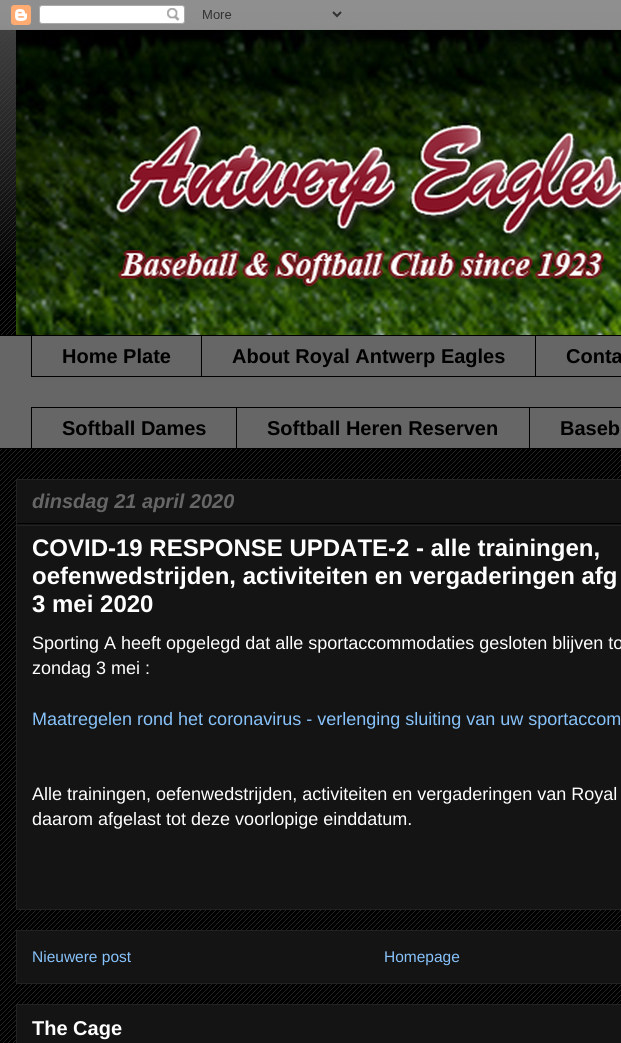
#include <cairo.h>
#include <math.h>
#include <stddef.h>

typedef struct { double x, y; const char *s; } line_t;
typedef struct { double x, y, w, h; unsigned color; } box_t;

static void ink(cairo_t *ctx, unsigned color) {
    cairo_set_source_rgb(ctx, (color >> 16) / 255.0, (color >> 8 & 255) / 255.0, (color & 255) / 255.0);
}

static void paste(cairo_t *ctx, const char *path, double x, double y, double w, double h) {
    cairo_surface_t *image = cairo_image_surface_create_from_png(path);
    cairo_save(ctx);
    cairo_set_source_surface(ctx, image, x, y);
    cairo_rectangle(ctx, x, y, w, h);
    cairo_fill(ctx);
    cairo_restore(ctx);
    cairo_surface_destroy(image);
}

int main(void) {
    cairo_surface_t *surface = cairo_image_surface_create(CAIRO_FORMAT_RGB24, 621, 1043);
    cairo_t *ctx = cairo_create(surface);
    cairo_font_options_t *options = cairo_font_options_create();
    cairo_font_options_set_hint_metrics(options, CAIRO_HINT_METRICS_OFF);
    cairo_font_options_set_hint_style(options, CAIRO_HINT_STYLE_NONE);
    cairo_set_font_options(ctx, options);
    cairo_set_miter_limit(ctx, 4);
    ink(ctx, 0x000000);
    cairo_paint(ctx);
    paste(ctx, "media/1.png", 0, 13, 621, 1030);
    paste(ctx, "media/2.png", 0, 0, 621, 268);
    paste(ctx, "media/3.png", 0, 0, 621, 30);
    paste(ctx, "media/4.png", 16, 30, 605, 305);
    {
        static const box_t items[] = {
            {0, 336, 621, 112, 0x666666},
            {0, 335, 535, 1, 0x000000},
            {31, 376, 504, 1, 0x000000},
            {31, 335, 1, 42, 0x000000},
        };
        for (size_t i = 0; i < sizeof items / sizeof *items; i++) {
            ink(ctx, items[i].color);
            cairo_rectangle(ctx, items[i].x, items[i].y, items[i].w, items[i].h);
            cairo_fill(ctx);
        }
    }
    cairo_select_font_face(ctx, "Liberation Sans", CAIRO_FONT_SLANT_NORMAL, CAIRO_FONT_WEIGHT_BOLD);
    cairo_set_font_size(ctx, 20);
    cairo_move_to(ctx, 62, 363);
    cairo_show_text(ctx, "Home Plate");
    cairo_rectangle(ctx, 201, 335, 1, 42);
    cairo_fill(ctx);
    cairo_move_to(ctx, 232, 363);
    cairo_show_text(ctx, "About Royal Antwerp Eagles");
    cairo_rectangle(ctx, 535.5, 335.5, 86, 41);
    cairo_set_line_width(ctx, 1);
    cairo_stroke(ctx);
    cairo_move_to(ctx, 566, 363);
    cairo_show_text(ctx, "Conta");
    cairo_rectangle(ctx, 31, 407, 590, 1);
    cairo_fill(ctx);
    cairo_rectangle(ctx, 31, 407, 1, 42);
    cairo_fill(ctx);
    cairo_move_to(ctx, 62, 435);
    cairo_show_text(ctx, "Softball Dames");
    cairo_rectangle(ctx, 236, 407, 1, 42);
    cairo_fill(ctx);
    cairo_move_to(ctx, 267, 435);
    cairo_show_text(ctx, "Softball Heren Reserven");
    cairo_rectangle(ctx, 529, 407, 1, 42);
    cairo_fill(ctx);
    cairo_move_to(ctx, 560, 435);
    cairo_show_text(ctx, "Baseb");
    cairo_rectangle(ctx, 0, 448, 621, 1);
    cairo_fill(ctx);
    ink(ctx, 0x141414);
    cairo_rectangle(ctx, 16.5, 479.5, 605, 430);
    cairo_fill_preserve(ctx);
    ink(ctx, 0x222222);
    cairo_stroke(ctx);
    ink(ctx, 0x000000);
    cairo_rectangle(ctx, 17, 523, 604, 1);
    cairo_fill(ctx);
    cairo_select_font_face(ctx, "Liberation Sans", CAIRO_FONT_SLANT_ITALIC, CAIRO_FONT_WEIGHT_BOLD);
    ink(ctx, 0x666666);
    cairo_move_to(ctx, 32, 508);
    cairo_show_text(ctx, "dinsdag 21 april 2020");
    ink(ctx, 0x222222);
    cairo_rectangle(ctx, 17, 525, 604, 1);
    cairo_fill(ctx);
    cairo_select_font_face(ctx, "Liberation Sans", CAIRO_FONT_SLANT_NORMAL, CAIRO_FONT_WEIGHT_BOLD);
    cairo_set_font_size(ctx, 24);
    ink(ctx, 0xFFFFFF);
    {
        static const line_t items[] = {
            {32, 556, "COVID-19 RESPONSE UPDATE-2 - alle trainingen,"},
            {32, 584, "oefenwedstrijden, activiteiten en vergaderingen afg"},
            {32, 612, "3 mei 2020"},
        };
        for (size_t i = 0; i < sizeof items / sizeof *items; i++) {
            cairo_move_to(ctx, items[i].x, items[i].y);
            cairo_show_text(ctx, items[i].s);
        }
    }
    cairo_select_font_face(ctx, "Liberation Sans", CAIRO_FONT_SLANT_NORMAL, CAIRO_FONT_WEIGHT_NORMAL);
    cairo_set_font_size(ctx, 18);
    cairo_move_to(ctx, 32, 649);
    cairo_show_text(ctx, "Sporting A heeft opgelegd dat alle sportaccommodaties gesloten blijven to");
    cairo_move_to(ctx, 32, 674);
    cairo_show_text(ctx, "zondag 3 mei :");
    ink(ctx, 0x87C2FA);
    cairo_move_to(ctx, 32, 725);
    cairo_show_text(ctx, "Maatregelen rond het coronavirus - verlenging sluiting van uw sportaccom");
    ink(ctx, 0xFFFFFF);
    cairo_move_to(ctx, 32, 800);
    cairo_show_text(ctx, "Alle trainingen, oefenwedstrijden, activiteiten en vergaderingen van Royal");
    cairo_move_to(ctx, 32, 825);
    cairo_show_text(ctx, "daarom afgelast tot deze voorlopige einddatum.");
    ink(ctx, 0x141414);
    cairo_rectangle(ctx, 16.5, 930.5, 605, 53);
    cairo_fill_preserve(ctx);
    ink(ctx, 0x222222);
    cairo_stroke(ctx);
    cairo_set_font_size(ctx, 15.5);
    ink(ctx, 0x87C2FA);
    cairo_move_to(ctx, 32, 962);
    cairo_show_text(ctx, "Nieuwere post");
    cairo_move_to(ctx, 384, 962);
    cairo_show_text(ctx, "Homepage");
    ink(ctx, 0x141414);
    cairo_rectangle(ctx, 16.5, 1004.5, 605, 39);
    cairo_fill_preserve(ctx);
    ink(ctx, 0x222222);
    cairo_stroke(ctx);
    cairo_select_font_face(ctx, "Liberation Sans", CAIRO_FONT_SLANT_NORMAL, CAIRO_FONT_WEIGHT_BOLD);
    cairo_set_font_size(ctx, 20);
    ink(ctx, 0xFFFFFF);
    cairo_move_to(ctx, 32, 1035);
    cairo_show_text(ctx, "The Cage");
    cairo_surface_write_to_png(surface, "image.png");
    cairo_font_options_destroy(options);
    cairo_destroy(ctx);
    cairo_surface_destroy(surface);
    return 0;
}
